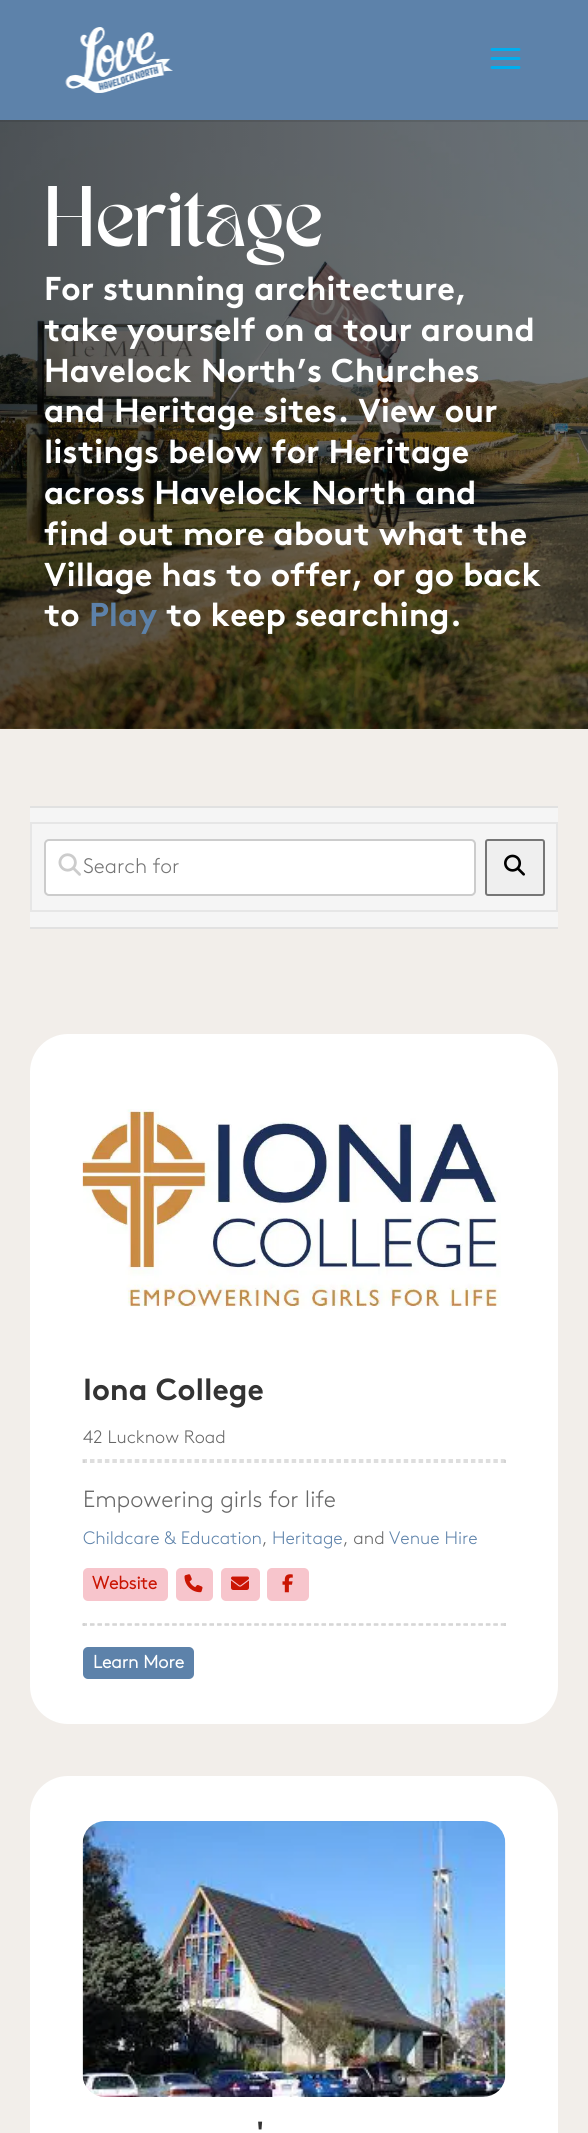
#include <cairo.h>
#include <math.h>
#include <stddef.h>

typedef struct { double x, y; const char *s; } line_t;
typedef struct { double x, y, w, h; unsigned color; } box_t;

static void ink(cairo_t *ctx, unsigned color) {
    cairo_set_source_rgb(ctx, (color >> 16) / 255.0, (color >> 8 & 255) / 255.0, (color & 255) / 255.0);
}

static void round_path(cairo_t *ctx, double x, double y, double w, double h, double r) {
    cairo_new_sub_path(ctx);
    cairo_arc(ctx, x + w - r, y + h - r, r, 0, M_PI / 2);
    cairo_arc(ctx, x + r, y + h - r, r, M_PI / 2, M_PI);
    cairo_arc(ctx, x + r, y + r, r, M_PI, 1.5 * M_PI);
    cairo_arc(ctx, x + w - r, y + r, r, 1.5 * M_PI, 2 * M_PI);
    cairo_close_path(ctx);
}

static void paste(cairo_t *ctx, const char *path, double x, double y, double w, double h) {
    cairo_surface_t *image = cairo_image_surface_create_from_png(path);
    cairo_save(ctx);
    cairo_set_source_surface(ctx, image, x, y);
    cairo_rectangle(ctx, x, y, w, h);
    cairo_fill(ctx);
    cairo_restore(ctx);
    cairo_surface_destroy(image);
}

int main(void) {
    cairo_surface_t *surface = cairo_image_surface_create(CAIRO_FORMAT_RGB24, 588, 2133);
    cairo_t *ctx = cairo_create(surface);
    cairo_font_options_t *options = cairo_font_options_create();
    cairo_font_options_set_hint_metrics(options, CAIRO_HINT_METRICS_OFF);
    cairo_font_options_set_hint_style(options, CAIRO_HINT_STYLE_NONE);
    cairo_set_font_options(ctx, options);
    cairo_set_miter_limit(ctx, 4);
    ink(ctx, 0xFFFFFF);
    cairo_paint(ctx);
    paste(ctx, "media/3.png", 0, 120, 588, 609);
    cairo_set_source_rgba(ctx, 0, 0, 0, 0.1);
    cairo_rectangle(ctx, 0, 120, 588, 2);
    cairo_fill(ctx);
    ink(ctx, 0x5D82AA);
    cairo_rectangle(ctx, 0, 0, 588, 120);
    cairo_fill(ctx);
    paste(ctx, "media/1.png", 65, 27, 108, 66);
    paste(ctx, "media/2.png", 490, 48, 31, 21);
    cairo_select_font_face(ctx, "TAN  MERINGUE", CAIRO_FONT_SLANT_NORMAL, CAIRO_FONT_WEIGHT_NORMAL);
    cairo_set_font_size(ctx, 60);
    ink(ctx, 0xFFFFFF);
    cairo_move_to(ctx, 44, 246);
    cairo_show_text(ctx, "Heritage");
    cairo_select_font_face(ctx, "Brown", CAIRO_FONT_SLANT_NORMAL, CAIRO_FONT_WEIGHT_BOLD);
    cairo_set_font_size(ctx, 33);
    {
        static const line_t items[] = {
            {44, 300, "For stunning architecture,"},
            {44, 341, "take yourself on a tour around"},
            {44, 382, "Havelock North’s Churches"},
            {44, 422, "and Heritage sites. View our"},
            {44, 463, "listings below for Heritage"},
            {44, 504, "across Havelock North and"},
            {44, 545, "find out more about what the"},
            {44, 586, "Village has to offer, or go back"},
            {44, 626, "to"},
        };
        for (size_t i = 0; i < sizeof items / sizeof *items; i++) {
            cairo_move_to(ctx, items[i].x, items[i].y);
            cairo_show_text(ctx, items[i].s);
        }
    }
    ink(ctx, 0x5D82AA);
    cairo_move_to(ctx, 89, 626);
    cairo_show_text(ctx, "Play");
    ink(ctx, 0xFFFFFF);
    cairo_move_to(ctx, 166, 626);
    cairo_show_text(ctx, "to keep searching.");
    {
        static const box_t items[] = {
            {0, 729, 588, 1404, 0xF2EEEA},
            {30, 808, 528, 119, 0xF5F5F5},
            {30, 806, 528, 2, 0xE1E1E1},
            {30, 927, 528, 2, 0xE1E1E1},
        };
        for (size_t i = 0; i < sizeof items / sizeof *items; i++) {
            ink(ctx, items[i].color);
            cairo_rectangle(ctx, items[i].x, items[i].y, items[i].w, items[i].h);
            cairo_fill(ctx);
        }
    }
    cairo_rectangle(ctx, 31, 823, 526, 88);
    ink(ctx, 0xE6E6E6);
    cairo_stroke(ctx);
    ink(ctx, 0xFFFFFF);
    round_path(ctx, 45, 840, 430, 55, 4);
    cairo_fill_preserve(ctx);
    ink(ctx, 0xCCCCCC);
    cairo_stroke(ctx);
    paste(ctx, "media/4.png", 58, 853, 23, 23);
    cairo_select_font_face(ctx, "Brown Light", CAIRO_FONT_SLANT_NORMAL, CAIRO_FONT_WEIGHT_NORMAL);
    cairo_set_font_size(ctx, 21);
    ink(ctx, 0x757575);
    cairo_move_to(ctx, 83, 873);
    cairo_show_text(ctx, "Search for");
    ink(ctx, 0xEFEFEF);
    round_path(ctx, 486, 840, 58, 55, 2);
    cairo_fill_preserve(ctx);
    ink(ctx, 0x767676);
    cairo_stroke(ctx);
    paste(ctx, "media/5.png", 504, 854, 21, 22);
    ink(ctx, 0xFFFFFF);
    round_path(ctx, 30, 1034, 528, 690, 38);
    cairo_fill(ctx);
    paste(ctx, "media/6.png", 82, 1109, 419, 200);
    cairo_select_font_face(ctx, "Brown", CAIRO_FONT_SLANT_NORMAL, CAIRO_FONT_WEIGHT_BOLD);
    cairo_set_font_size(ctx, 30.5);
    ink(ctx, 0x333333);
    cairo_move_to(ctx, 83, 1400);
    cairo_show_text(ctx, "Iona College");
    cairo_select_font_face(ctx, "Brown Light", CAIRO_FONT_SLANT_NORMAL, CAIRO_FONT_WEIGHT_NORMAL);
    cairo_set_font_size(ctx, 18);
    ink(ctx, 0x666666);
    cairo_move_to(ctx, 83, 1443);
    cairo_show_text(ctx, "42 Lucknow Road");
    cairo_new_path(ctx);
    cairo_move_to(ctx, 82.5, 1460);
    cairo_line_to(ctx, 505.5, 1460);
    ink(ctx, 0xD3D3D3);
    cairo_set_line_width(ctx, 1.5);
    cairo_set_dash(ctx, (double[]){4.5, 2.97}, 2, 0);
    cairo_stroke(ctx);
    cairo_rectangle(ctx, 504, 1460, 2, 3);
    cairo_fill(ctx);
    cairo_new_path(ctx);
    cairo_move_to(ctx, 82.5, 1462);
    cairo_line_to(ctx, 505.5, 1462);
    cairo_stroke(ctx);
    cairo_rectangle(ctx, 83, 1460, 2, 3);
    cairo_fill(ctx);
    cairo_set_font_size(ctx, 23.4);
    ink(ctx, 0x666666);
    cairo_move_to(ctx, 83, 1507);
    cairo_show_text(ctx, "Empowering girls for life");
    cairo_set_font_size(ctx, 18);
    ink(ctx, 0x5D82AA);
    cairo_move_to(ctx, 83, 1544);
    cairo_show_text(ctx, "Childcare & Education");
    ink(ctx, 0x666666);
    cairo_move_to(ctx, 262, 1544);
    cairo_show_text(ctx, ",");
    ink(ctx, 0x5D82AA);
    cairo_move_to(ctx, 272, 1544);
    cairo_show_text(ctx, "Heritage");
    ink(ctx, 0x666666);
    cairo_move_to(ctx, 343, 1544);
    cairo_show_text(ctx, ", and");
    ink(ctx, 0x5D82AA);
    cairo_move_to(ctx, 389, 1544);
    cairo_show_text(ctx, "Venue Hire");
    ink(ctx, 0xF7C5CC);
    round_path(ctx, 83, 1568, 85, 33, 5);
    cairo_fill(ctx);
    cairo_select_font_face(ctx, "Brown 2", CAIRO_FONT_SLANT_NORMAL, CAIRO_FONT_WEIGHT_BOLD);
    ink(ctx, 0xCA1503);
    cairo_move_to(ctx, 92, 1589);
    cairo_show_text(ctx, "Website");
    ink(ctx, 0xF7C5CC);
    round_path(ctx, 176, 1568, 37, 33, 5);
    cairo_fill(ctx);
    paste(ctx, "media/7.png", 184, 1574, 19, 19);
    round_path(ctx, 221, 1568, 39, 33, 5);
    cairo_fill(ctx);
    paste(ctx, "media/8.png", 231, 1576, 18, 14);
    round_path(ctx, 267, 1568, 42, 33, 5);
    cairo_fill(ctx);
    paste(ctx, "media/9.png", 282, 1574, 11, 19);
    cairo_new_path(ctx);
    cairo_move_to(ctx, 82.5, 1624);
    cairo_line_to(ctx, 505.5, 1624);
    ink(ctx, 0xD3D3D3);
    cairo_stroke(ctx);
    cairo_rectangle(ctx, 504, 1623, 2, 3);
    cairo_fill(ctx);
    cairo_new_path(ctx);
    cairo_move_to(ctx, 82.5, 1625);
    cairo_line_to(ctx, 505.5, 1625);
    cairo_stroke(ctx);
    cairo_rectangle(ctx, 83, 1623, 2, 3);
    cairo_fill(ctx);
    ink(ctx, 0x5D82AA);
    round_path(ctx, 83, 1647, 111, 32, 5);
    cairo_fill(ctx);
    ink(ctx, 0xFFFFFF);
    cairo_move_to(ctx, 93, 1668);
    cairo_show_text(ctx, "Learn More");
    round_path(ctx, 30, 1776, 528, 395, 38);
    cairo_fill(ctx);
    paste(ctx, "media/10.png", 82, 1821, 424, 276);
    cairo_select_font_face(ctx, "Brown", CAIRO_FONT_SLANT_NORMAL, CAIRO_FONT_WEIGHT_BOLD);
    cairo_set_font_size(ctx, 30.5);
    ink(ctx, 0x333333);
    cairo_move_to(ctx, 256, 2143);
    cairo_show_text(ctx, "'");
    cairo_surface_write_to_png(surface, "image.png");
    cairo_font_options_destroy(options);
    cairo_destroy(ctx);
    cairo_surface_destroy(surface);
    return 0;
}
